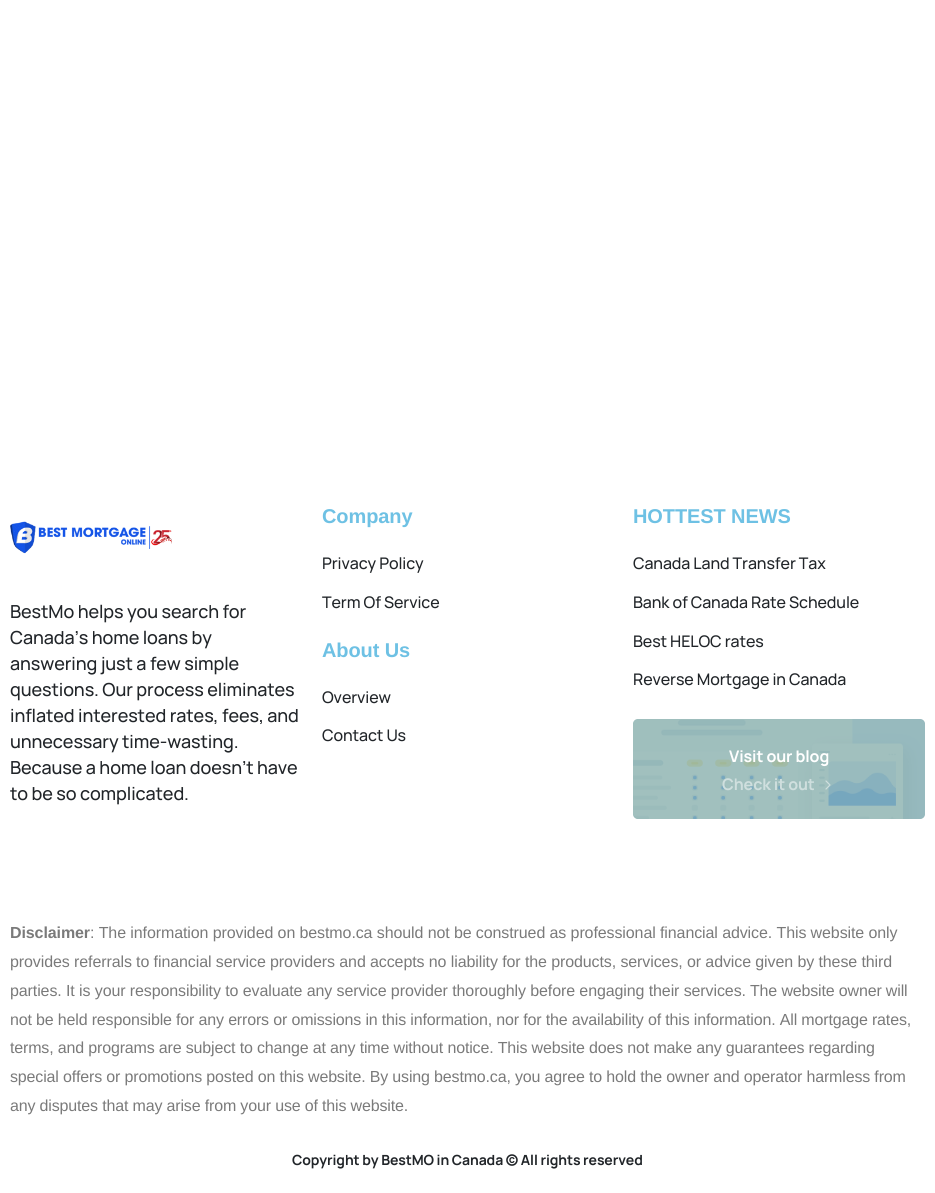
#include <cairo.h>
#include <math.h>
#include <stddef.h>

typedef struct { double x, y; const char *s; } line_t;

static void ink(cairo_t *ctx, unsigned color) {
    cairo_set_source_rgb(ctx, (color >> 16) / 255.0, (color >> 8 & 255) / 255.0, (color & 255) / 255.0);
}

static void write_spaced(cairo_t *ctx, double x, double y, const char *s, double letter, double word) {
    cairo_move_to(ctx, x, y);
    while (*s) {
        char ch[5] = {0};
        int n = 0;
        do ch[n++] = *s++; while ((*s & 0xC0) == 0x80);
        cairo_show_text(ctx, ch);
        cairo_rel_move_to(ctx, letter + word * (*ch == ' '), 0);
    }
}

static void round_path(cairo_t *ctx, double x, double y, double w, double h, double r) {
    cairo_new_sub_path(ctx);
    cairo_arc(ctx, x + w - r, y + h - r, r, 0, M_PI / 2);
    cairo_arc(ctx, x + r, y + h - r, r, M_PI / 2, M_PI);
    cairo_arc(ctx, x + r, y + r, r, M_PI, 1.5 * M_PI);
    cairo_arc(ctx, x + w - r, y + r, r, 1.5 * M_PI, 2 * M_PI);
    cairo_close_path(ctx);
}

static void paste(cairo_t *ctx, const char *path, double x, double y, double w, double h) {
    cairo_surface_t *image = cairo_image_surface_create_from_png(path);
    cairo_save(ctx);
    cairo_set_source_surface(ctx, image, x, y);
    cairo_rectangle(ctx, x, y, w, h);
    cairo_fill(ctx);
    cairo_restore(ctx);
    cairo_surface_destroy(image);
}

int main(void) {
    cairo_surface_t *surface = cairo_image_surface_create(CAIRO_FORMAT_RGB24, 935, 1193);
    cairo_t *ctx = cairo_create(surface);
    cairo_font_options_t *options = cairo_font_options_create();
    cairo_font_options_set_hint_metrics(options, CAIRO_HINT_METRICS_OFF);
    cairo_font_options_set_hint_style(options, CAIRO_HINT_STYLE_NONE);
    cairo_set_font_options(ctx, options);
    cairo_set_miter_limit(ctx, 4);
    ink(ctx, 0xFFFFFF);
    cairo_paint(ctx);
    paste(ctx, "media/1.png", 10, 521, 162, 33);
    cairo_select_font_face(ctx, "Manrope Medium", CAIRO_FONT_SLANT_NORMAL, CAIRO_FONT_WEIGHT_NORMAL);
    cairo_set_font_size(ctx, 18);
    ink(ctx, 0x212529);
    {
        static const line_t items[] = {
            {10, 618, "BestMo helps you search for"},
            {10, 644, "Canada’s home loans by"},
            {10, 670, "answering just a few simple"},
            {10, 696, "questions. Our process eliminates"},
            {10, 722, "inflated interested rates, fees, and"},
            {10, 748, "unnecessary time-wasting."},
            {10, 774, "Because a home loan doesn’t have"},
            {10, 800, "to be so complicated."},
        };
        for (size_t i = 0; i < sizeof items / sizeof *items; i++) {
            write_spaced(ctx, items[i].x, items[i].y, items[i].s, -0.1, 0);
        }
    }
    cairo_select_font_face(ctx, "Liberation Sans", CAIRO_FONT_SLANT_NORMAL, CAIRO_FONT_WEIGHT_BOLD);
    cairo_set_font_size(ctx, 20);
    ink(ctx, 0x6EC1E4);
    write_spaced(ctx, 322, 523, "Company", -0.1, 0);
    cairo_select_font_face(ctx, "Manrope Medium", CAIRO_FONT_SLANT_NORMAL, CAIRO_FONT_WEIGHT_NORMAL);
    cairo_set_font_size(ctx, 16);
    ink(ctx, 0x212529);
    write_spaced(ctx, 322, 569, "Privacy Policy", -0.1, 0);
    write_spaced(ctx, 322, 608, "Term Of Service", -0.1, 0);
    cairo_select_font_face(ctx, "Liberation Sans", CAIRO_FONT_SLANT_NORMAL, CAIRO_FONT_WEIGHT_BOLD);
    cairo_set_font_size(ctx, 20);
    ink(ctx, 0x6EC1E4);
    write_spaced(ctx, 322, 657, "About Us", -0.1, 0);
    cairo_select_font_face(ctx, "Manrope Medium", CAIRO_FONT_SLANT_NORMAL, CAIRO_FONT_WEIGHT_NORMAL);
    cairo_set_font_size(ctx, 16);
    ink(ctx, 0x212529);
    write_spaced(ctx, 322, 703, "Overview", -0.1, 0);
    write_spaced(ctx, 322, 741, "Contact Us", -0.1, 0);
    cairo_select_font_face(ctx, "Liberation Sans", CAIRO_FONT_SLANT_NORMAL, CAIRO_FONT_WEIGHT_BOLD);
    cairo_set_font_size(ctx, 20);
    ink(ctx, 0x6EC1E4);
    write_spaced(ctx, 633, 523, "HOTTEST NEWS", -0.1, 0);
    cairo_select_font_face(ctx, "Manrope Medium", CAIRO_FONT_SLANT_NORMAL, CAIRO_FONT_WEIGHT_NORMAL);
    cairo_set_font_size(ctx, 16);
    ink(ctx, 0x212529);
    {
        static const line_t items[] = {
            {633, 569, "Canada Land Transfer Tax"},
            {633, 608, "Bank of Canada Rate Schedule"},
            {633, 647, "Best HELOC rates"},
            {633, 685, "Reverse Mortgage in Canada"},
        };
        for (size_t i = 0; i < sizeof items / sizeof *items; i++) {
            write_spaced(ctx, items[i].x, items[i].y, items[i].s, -0.1, 0);
        }
    }
    ink(ctx, 0x89B0AE);
    round_path(ctx, 633, 719, 292, 100, 5);
    cairo_fill(ctx);
    paste(ctx, "media/2.png", 633, 719, 292, 100);
    cairo_select_font_face(ctx, "Manrope", CAIRO_FONT_SLANT_NORMAL, CAIRO_FONT_WEIGHT_BOLD);
    ink(ctx, 0xFFFFFF);
    write_spaced(ctx, 729, 762, "Visit our blog", -0.1, 0);
    ink(ctx, 0xCFDFDE);
    write_spaced(ctx, 722, 790, "Check it out", -0.1, 0);
    cairo_new_path(ctx);
    cairo_move_to(ctx, 826, 789);
    cairo_line_to(ctx, 830, 785);
    cairo_line_to(ctx, 826, 781);
    cairo_set_source_rgba(ctx, 1, 1, 1, 0.5);
    cairo_set_line_width(ctx, 1.2);
    cairo_set_line_cap(ctx, CAIRO_LINE_CAP_ROUND);
    cairo_set_line_join(ctx, CAIRO_LINE_JOIN_ROUND);
    cairo_stroke(ctx);
    cairo_select_font_face(ctx, "Liberation Sans", CAIRO_FONT_SLANT_NORMAL, CAIRO_FONT_WEIGHT_BOLD);
    ink(ctx, 0x7A7A7A);
    write_spaced(ctx, 10, 938, "Disclaimer", -0.1, 0);
    cairo_select_font_face(ctx, "Liberation Sans", CAIRO_FONT_SLANT_NORMAL, CAIRO_FONT_WEIGHT_NORMAL);
    {
        static const line_t items[] = {
            {90, 938, ": The information provided on bestmo.ca should not be construed as professional financial advice. This website only"},
            {10, 967, "provides referrals to financial service providers and accepts no liability for the products, services, or advice given by these third"},
            {10, 996, "parties. It is your responsibility to evaluate any service provider thoroughly before engaging their services."},
        };
        for (size_t i = 0; i < sizeof items / sizeof *items; i++) {
            write_spaced(ctx, items[i].x, items[i].y, items[i].s, -0.1, 0);
        }
    }
    {
        static const line_t items[] = {
            {750, 996, "The website owner will"},
            {10, 1025, "not be held responsible for any errors or omissions in this information, nor for the availability of this information. All mortgage rates,"},
            {10, 1053, "terms, and programs are subject to change at any time without notice. This website does not make any guarantees regarding"},
            {10, 1082, "special offers or promotions posted on this website. By using bestmo.ca, you agree to hold the owner and operator harmless from"},
            {10, 1111, "any disputes that may arise from your use of this website."},
        };
        for (size_t i = 0; i < sizeof items / sizeof *items; i++) {
            write_spaced(ctx, items[i].x, items[i].y, items[i].s, -0.16, 0);
        }
    }
    cairo_select_font_face(ctx, "Manrope", CAIRO_FONT_SLANT_NORMAL, CAIRO_FONT_WEIGHT_BOLD);
    cairo_set_font_size(ctx, 14);
    ink(ctx, 0x212529);
    write_spaced(ctx, 292, 1165, "Copyright by BestMO in Canada © All rights reserved", -0.1, 0);
    cairo_surface_write_to_png(surface, "image.png");
    cairo_font_options_destroy(options);
    cairo_destroy(ctx);
    cairo_surface_destroy(surface);
    return 0;
}
